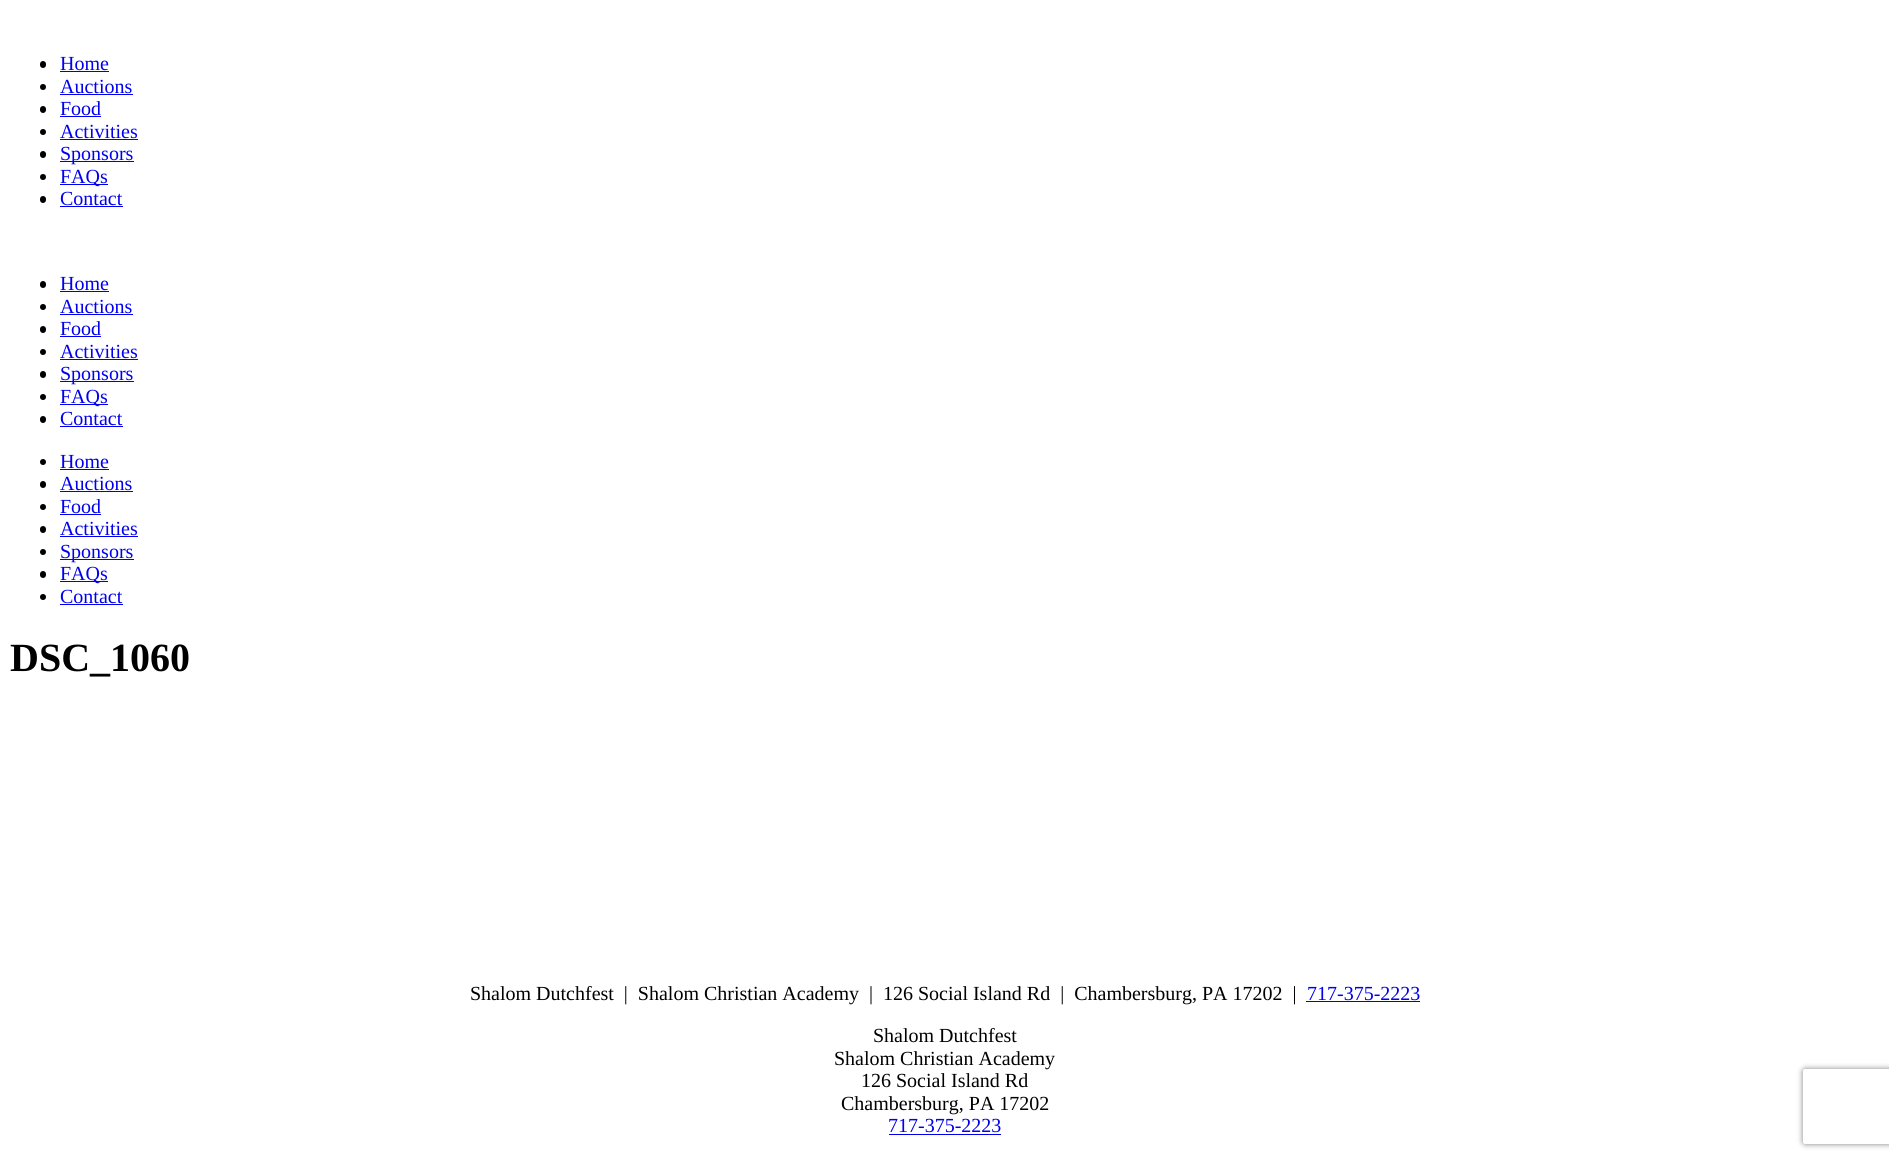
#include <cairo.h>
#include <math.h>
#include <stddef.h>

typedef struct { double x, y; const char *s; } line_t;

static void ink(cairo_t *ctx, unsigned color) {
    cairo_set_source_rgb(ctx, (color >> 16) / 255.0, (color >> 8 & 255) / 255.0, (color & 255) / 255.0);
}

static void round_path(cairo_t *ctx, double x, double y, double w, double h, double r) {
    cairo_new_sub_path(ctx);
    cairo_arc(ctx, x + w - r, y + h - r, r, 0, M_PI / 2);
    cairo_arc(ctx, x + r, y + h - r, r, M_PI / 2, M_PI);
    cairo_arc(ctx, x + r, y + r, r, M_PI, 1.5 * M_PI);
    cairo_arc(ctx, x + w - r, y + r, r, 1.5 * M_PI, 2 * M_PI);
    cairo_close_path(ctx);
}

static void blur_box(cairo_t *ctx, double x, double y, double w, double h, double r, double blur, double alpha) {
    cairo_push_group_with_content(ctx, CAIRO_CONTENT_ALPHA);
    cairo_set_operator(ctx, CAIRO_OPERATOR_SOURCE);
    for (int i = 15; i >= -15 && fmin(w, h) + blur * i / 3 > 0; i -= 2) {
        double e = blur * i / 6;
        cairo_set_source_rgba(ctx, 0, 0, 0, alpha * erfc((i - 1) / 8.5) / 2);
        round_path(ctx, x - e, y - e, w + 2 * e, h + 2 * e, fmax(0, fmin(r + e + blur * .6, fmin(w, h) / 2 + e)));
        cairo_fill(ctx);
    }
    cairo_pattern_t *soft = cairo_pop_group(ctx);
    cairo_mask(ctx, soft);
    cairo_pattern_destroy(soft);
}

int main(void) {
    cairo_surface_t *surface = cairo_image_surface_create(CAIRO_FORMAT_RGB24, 1889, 1161);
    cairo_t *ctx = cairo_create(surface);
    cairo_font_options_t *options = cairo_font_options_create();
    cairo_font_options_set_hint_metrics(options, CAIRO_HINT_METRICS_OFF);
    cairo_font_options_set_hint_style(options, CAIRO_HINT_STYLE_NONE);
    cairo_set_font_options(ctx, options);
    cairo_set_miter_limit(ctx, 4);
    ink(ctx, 0xFFFFFF);
    cairo_paint(ctx);
    ink(ctx, 0x000000);
    round_path(ctx, 40, 61, 6, 7, 3);
    cairo_fill(ctx);
    cairo_select_font_face(ctx, "Liberation Serif", CAIRO_FONT_SLANT_NORMAL, CAIRO_FONT_WEIGHT_NORMAL);
    cairo_set_font_size(ctx, 20);
    ink(ctx, 0x0000EE);
    cairo_move_to(ctx, 60, 70);
    cairo_show_text(ctx, "Home");
    cairo_rectangle(ctx, 60, 71, 49, 1);
    cairo_fill(ctx);
    ink(ctx, 0x000000);
    cairo_arc(ctx, 43, 87, 3, 0, 2 * M_PI);
    cairo_fill(ctx);
    ink(ctx, 0x0000EE);
    cairo_move_to(ctx, 60, 93);
    cairo_show_text(ctx, "Auctions");
    cairo_rectangle(ctx, 60, 94, 73, 1);
    cairo_fill(ctx);
    ink(ctx, 0x000000);
    round_path(ctx, 40, 106, 6, 7, 3);
    cairo_fill(ctx);
    ink(ctx, 0x0000EE);
    cairo_move_to(ctx, 60, 115);
    cairo_show_text(ctx, "Food");
    cairo_rectangle(ctx, 60, 116, 41, 1);
    cairo_fill(ctx);
    ink(ctx, 0x000000);
    cairo_arc(ctx, 43, 132, 3, 0, 2 * M_PI);
    cairo_fill(ctx);
    ink(ctx, 0x0000EE);
    cairo_move_to(ctx, 60, 138);
    cairo_show_text(ctx, "Activities");
    cairo_rectangle(ctx, 60, 139, 78, 1);
    cairo_fill(ctx);
    ink(ctx, 0x000000);
    round_path(ctx, 40, 151, 6, 7, 3);
    cairo_fill(ctx);
    ink(ctx, 0x0000EE);
    cairo_rectangle(ctx, 60, 161, 74, 1);
    cairo_fill(ctx);
    cairo_move_to(ctx, 60, 160);
    cairo_show_text(ctx, "Sponsors");
    ink(ctx, 0x000000);
    cairo_new_path(ctx);
    cairo_arc(ctx, 43, 177, 3, 0, 2 * M_PI);
    cairo_fill(ctx);
    ink(ctx, 0x0000EE);
    cairo_rectangle(ctx, 60, 184, 48, 1);
    cairo_fill(ctx);
    cairo_move_to(ctx, 60, 183);
    cairo_show_text(ctx, "FAQs");
    ink(ctx, 0x000000);
    round_path(ctx, 40, 196, 6, 7, 3);
    cairo_fill(ctx);
    ink(ctx, 0x0000EE);
    cairo_move_to(ctx, 60, 205);
    cairo_show_text(ctx, "Contact");
    cairo_rectangle(ctx, 60, 206, 63, 1);
    cairo_fill(ctx);
    ink(ctx, 0x000000);
    round_path(ctx, 40, 281, 6, 7, 3);
    cairo_fill(ctx);
    ink(ctx, 0x0000EE);
    cairo_move_to(ctx, 60, 290);
    cairo_show_text(ctx, "Home");
    cairo_rectangle(ctx, 60, 291, 49, 1);
    cairo_fill(ctx);
    ink(ctx, 0x000000);
    cairo_arc(ctx, 43, 307, 3, 0, 2 * M_PI);
    cairo_fill(ctx);
    ink(ctx, 0x0000EE);
    cairo_move_to(ctx, 60, 313);
    cairo_show_text(ctx, "Auctions");
    cairo_rectangle(ctx, 60, 314, 73, 1);
    cairo_fill(ctx);
    ink(ctx, 0x000000);
    round_path(ctx, 40, 326, 6, 7, 3);
    cairo_fill(ctx);
    ink(ctx, 0x0000EE);
    cairo_move_to(ctx, 60, 335);
    cairo_show_text(ctx, "Food");
    cairo_rectangle(ctx, 60, 336, 41, 1);
    cairo_fill(ctx);
    ink(ctx, 0x000000);
    cairo_arc(ctx, 43, 352, 3, 0, 2 * M_PI);
    cairo_fill(ctx);
    ink(ctx, 0x0000EE);
    cairo_move_to(ctx, 60, 358);
    cairo_show_text(ctx, "Activities");
    cairo_rectangle(ctx, 60, 359, 78, 1);
    cairo_fill(ctx);
    ink(ctx, 0x000000);
    round_path(ctx, 40, 371, 6, 7, 3);
    cairo_fill(ctx);
    ink(ctx, 0x0000EE);
    cairo_rectangle(ctx, 60, 381, 74, 1);
    cairo_fill(ctx);
    cairo_move_to(ctx, 60, 380);
    cairo_show_text(ctx, "Sponsors");
    ink(ctx, 0x000000);
    cairo_new_path(ctx);
    cairo_arc(ctx, 43, 397, 3, 0, 2 * M_PI);
    cairo_fill(ctx);
    ink(ctx, 0x0000EE);
    cairo_rectangle(ctx, 60, 404, 48, 1);
    cairo_fill(ctx);
    cairo_move_to(ctx, 60, 403);
    cairo_show_text(ctx, "FAQs");
    ink(ctx, 0x000000);
    round_path(ctx, 40, 416, 6, 7, 3);
    cairo_fill(ctx);
    ink(ctx, 0x0000EE);
    cairo_move_to(ctx, 60, 425);
    cairo_show_text(ctx, "Contact");
    cairo_rectangle(ctx, 60, 426, 63, 1);
    cairo_fill(ctx);
    ink(ctx, 0x000000);
    cairo_arc(ctx, 43, 462, 3, 0, 2 * M_PI);
    cairo_fill(ctx);
    ink(ctx, 0x0000EE);
    cairo_move_to(ctx, 60, 468);
    cairo_show_text(ctx, "Home");
    cairo_rectangle(ctx, 60, 469, 49, 1);
    cairo_fill(ctx);
    ink(ctx, 0x000000);
    round_path(ctx, 40, 481, 6, 7, 3);
    cairo_fill(ctx);
    ink(ctx, 0x0000EE);
    cairo_move_to(ctx, 60, 490);
    cairo_show_text(ctx, "Auctions");
    cairo_rectangle(ctx, 60, 491, 73, 1);
    cairo_fill(ctx);
    ink(ctx, 0x000000);
    cairo_arc(ctx, 43, 507, 3, 0, 2 * M_PI);
    cairo_fill(ctx);
    ink(ctx, 0x0000EE);
    cairo_move_to(ctx, 60, 513);
    cairo_show_text(ctx, "Food");
    cairo_rectangle(ctx, 60, 514, 41, 1);
    cairo_fill(ctx);
    ink(ctx, 0x000000);
    round_path(ctx, 40, 526, 6, 7, 3);
    cairo_fill(ctx);
    ink(ctx, 0x0000EE);
    cairo_move_to(ctx, 60, 535);
    cairo_show_text(ctx, "Activities");
    cairo_rectangle(ctx, 60, 536, 78, 1);
    cairo_fill(ctx);
    ink(ctx, 0x000000);
    cairo_arc(ctx, 43, 552, 3, 0, 2 * M_PI);
    cairo_fill(ctx);
    ink(ctx, 0x0000EE);
    cairo_rectangle(ctx, 60, 559, 74, 1);
    cairo_fill(ctx);
    cairo_move_to(ctx, 60, 558);
    cairo_show_text(ctx, "Sponsors");
    ink(ctx, 0x000000);
    round_path(ctx, 40, 571, 6, 7, 3);
    cairo_fill(ctx);
    ink(ctx, 0x0000EE);
    cairo_rectangle(ctx, 60, 581, 48, 1);
    cairo_fill(ctx);
    cairo_move_to(ctx, 60, 580);
    cairo_show_text(ctx, "FAQs");
    ink(ctx, 0x000000);
    cairo_new_path(ctx);
    cairo_arc(ctx, 43, 597, 3, 0, 2 * M_PI);
    cairo_fill(ctx);
    ink(ctx, 0x0000EE);
    cairo_move_to(ctx, 60, 603);
    cairo_show_text(ctx, "Contact");
    cairo_rectangle(ctx, 60, 604, 63, 1);
    cairo_fill(ctx);
    cairo_select_font_face(ctx, "Liberation Serif", CAIRO_FONT_SLANT_NORMAL, CAIRO_FONT_WEIGHT_BOLD);
    cairo_set_font_size(ctx, 40);
    ink(ctx, 0x000000);
    cairo_move_to(ctx, 10, 671);
    cairo_show_text(ctx, "DSC_1060");
    cairo_select_font_face(ctx, "Liberation Serif", CAIRO_FONT_SLANT_NORMAL, CAIRO_FONT_WEIGHT_NORMAL);
    cairo_set_font_size(ctx, 20);
    cairo_move_to(ctx, 470, 1000);
    cairo_show_text(ctx, "Shalom Dutchfest  |  Shalom Christian Academy  |  126 Social Island Rd  |  Chambersburg, PA 17202  |");
    ink(ctx, 0x0000EE);
    cairo_move_to(ctx, 1307, 1000);
    cairo_show_text(ctx, "717-375-2223");
    cairo_rectangle(ctx, 1306, 1001, 114, 1);
    cairo_fill(ctx);
    ink(ctx, 0x000000);
    {
        static const line_t items[] = {
            {873, 1042, "Shalom Dutchfest"},
            {834, 1065, "Shalom Christian Academy"},
            {861, 1087, "126 Social Island Rd"},
            {841, 1110, "Chambersburg, PA 17202"},
        };
        for (size_t i = 0; i < sizeof items / sizeof *items; i++) {
            cairo_move_to(ctx, items[i].x, items[i].y);
            cairo_show_text(ctx, items[i].s);
        }
    }
    ink(ctx, 0x0000EE);
    cairo_move_to(ctx, 888, 1132);
    cairo_show_text(ctx, "717-375-2223");
    cairo_rectangle(ctx, 889, 1134, 112, 1);
    cairo_fill(ctx);
    cairo_save(ctx);
    cairo_set_fill_rule(ctx, CAIRO_FILL_RULE_EVEN_ODD);
    cairo_new_path(ctx);
    cairo_move_to(ctx, 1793, 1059);
    cairo_line_to(ctx, 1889, 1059);
    cairo_line_to(ctx, 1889, 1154);
    cairo_line_to(ctx, 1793, 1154);
    cairo_close_path(ctx);
    cairo_move_to(ctx, 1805.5, 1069);
    cairo_line_to(ctx, 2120.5, 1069);
    cairo_curve_to(ctx, 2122, 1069, 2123, 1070, 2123, 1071.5);
    cairo_line_to(ctx, 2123, 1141.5);
    cairo_curve_to(ctx, 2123, 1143, 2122, 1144, 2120.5, 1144);
    cairo_line_to(ctx, 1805.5, 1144);
    cairo_curve_to(ctx, 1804, 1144, 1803, 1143, 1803, 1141.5);
    cairo_line_to(ctx, 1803, 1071.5);
    cairo_curve_to(ctx, 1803, 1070, 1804, 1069, 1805.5, 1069);
    cairo_close_path(ctx);
    cairo_clip(ctx);
    ink(ctx, 0x808080);
    blur_box(ctx, 1803, 1069, 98, 75, 2.5, 3, 1);
    cairo_restore(ctx);
    cairo_surface_write_to_png(surface, "image.png");
    cairo_font_options_destroy(options);
    cairo_destroy(ctx);
    cairo_surface_destroy(surface);
    return 0;
}
